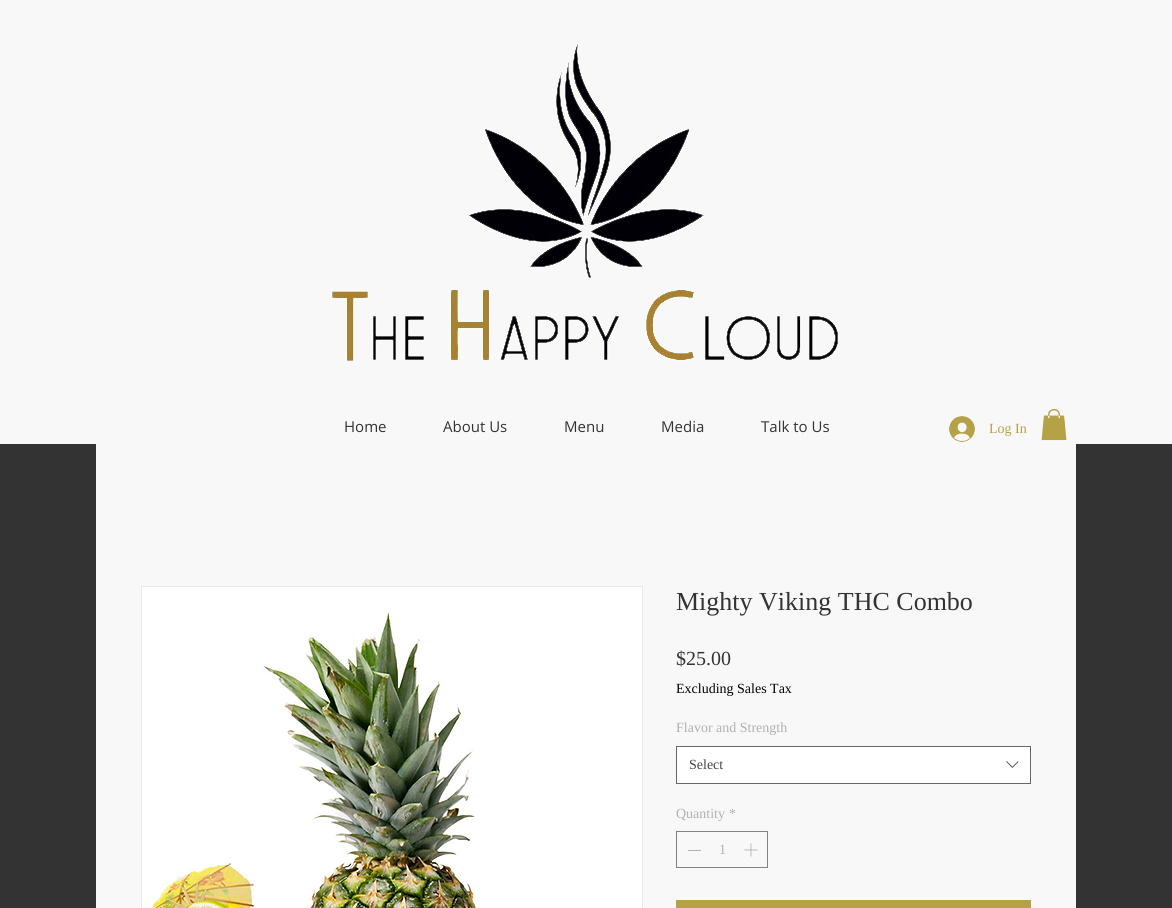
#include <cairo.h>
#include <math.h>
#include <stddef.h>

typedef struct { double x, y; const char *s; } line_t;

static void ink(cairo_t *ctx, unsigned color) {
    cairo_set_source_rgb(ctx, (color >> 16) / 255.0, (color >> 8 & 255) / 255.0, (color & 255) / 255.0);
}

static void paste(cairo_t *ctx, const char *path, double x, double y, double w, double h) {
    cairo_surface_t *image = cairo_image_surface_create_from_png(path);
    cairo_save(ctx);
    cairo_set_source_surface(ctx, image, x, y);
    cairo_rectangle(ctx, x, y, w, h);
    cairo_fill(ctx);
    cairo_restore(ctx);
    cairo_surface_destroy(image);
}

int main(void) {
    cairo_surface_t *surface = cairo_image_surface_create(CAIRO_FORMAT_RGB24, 1172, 908);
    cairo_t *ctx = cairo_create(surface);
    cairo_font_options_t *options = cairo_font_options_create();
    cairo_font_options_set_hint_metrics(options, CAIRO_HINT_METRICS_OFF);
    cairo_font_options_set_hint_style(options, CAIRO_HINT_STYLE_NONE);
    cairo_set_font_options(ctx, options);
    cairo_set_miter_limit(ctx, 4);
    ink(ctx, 0x333333);
    cairo_paint(ctx);
    ink(ctx, 0xF8F8F8);
    cairo_rectangle(ctx, 0, 0, 1172, 444);
    cairo_fill(ctx);
    paste(ctx, "media/1.png", 331, 44, 507, 318);
    cairo_select_font_face(ctx, "Open Sans", CAIRO_FONT_SLANT_NORMAL, CAIRO_FONT_WEIGHT_NORMAL);
    cairo_set_font_size(ctx, 15);
    ink(ctx, 0x333333);
    {
        static const line_t items[] = {
            {344, 432, "Home"},
            {443, 432, "About Us"},
            {564, 432, "Menu"},
            {661, 432, "Media"},
            {761, 432, "Talk to Us"},
        };
        for (size_t i = 0; i < sizeof items / sizeof *items; i++) {
            cairo_move_to(ctx, items[i].x, items[i].y);
            cairo_show_text(ctx, items[i].s);
        }
    }
    paste(ctx, "media/2.png", 949, 416, 26, 26);
    cairo_select_font_face(ctx, "Liberation Serif", CAIRO_FONT_SLANT_NORMAL, CAIRO_FONT_WEIGHT_NORMAL);
    cairo_set_font_size(ctx, 14);
    ink(ctx, 0xB6A246);
    cairo_move_to(ctx, 989, 433);
    cairo_show_text(ctx, "Log In");
    paste(ctx, "media/3.png", 1041, 409, 26, 32);
    ink(ctx, 0xF8F8F8);
    cairo_rectangle(ctx, 96, 444, 980, 464);
    cairo_fill(ctx);
    cairo_rectangle(ctx, 141.5, 586.5, 501, 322);
    ink(ctx, 0xE8E8E8);
    cairo_set_line_width(ctx, 1);
    cairo_stroke(ctx);
    paste(ctx, "media/4.png", 142, 587, 500, 321);
    cairo_set_font_size(ctx, 26);
    ink(ctx, 0x333333);
    cairo_move_to(ctx, 676, 610);
    cairo_show_text(ctx, "Mighty Viking THC Combo");
    cairo_set_font_size(ctx, 20);
    cairo_move_to(ctx, 676, 665);
    cairo_show_text(ctx, "$25.00");
    cairo_set_font_size(ctx, 14);
    ink(ctx, 0x000000);
    cairo_move_to(ctx, 676, 693);
    cairo_show_text(ctx, "Excluding Sales Tax");
    ink(ctx, 0xB2B1B1);
    cairo_move_to(ctx, 676, 732);
    cairo_show_text(ctx, "Flavor and Strength");
    ink(ctx, 0xFFFFFF);
    cairo_rectangle(ctx, 676.5, 746.5, 354, 37);
    cairo_fill_preserve(ctx);
    ink(ctx, 0x666666);
    cairo_stroke(ctx);
    ink(ctx, 0x444444);
    cairo_move_to(ctx, 689, 769);
    cairo_show_text(ctx, "Select");
    paste(ctx, "media/5.png", 1006, 761, 13, 7);
    ink(ctx, 0xB2B1B1);
    cairo_move_to(ctx, 676, 818);
    cairo_show_text(ctx, "Quantity");
    cairo_move_to(ctx, 729, 818);
    cairo_show_text(ctx, "*");
    cairo_rectangle(ctx, 676.5, 831.5, 91, 36);
    ink(ctx, 0x828282);
    cairo_stroke(ctx);
    ink(ctx, 0xB2B1B1);
    cairo_rectangle(ctx, 688, 850, 13, 1);
    cairo_fill(ctx);
    cairo_move_to(ctx, 719, 854);
    cairo_show_text(ctx, "1");
    paste(ctx, "media/6.png", 744, 843, 14, 14);
    ink(ctx, 0xB6A246);
    cairo_rectangle(ctx, 676, 900, 355, 8);
    cairo_fill(ctx);
    cairo_surface_write_to_png(surface, "image.png");
    cairo_font_options_destroy(options);
    cairo_destroy(ctx);
    cairo_surface_destroy(surface);
    return 0;
}
